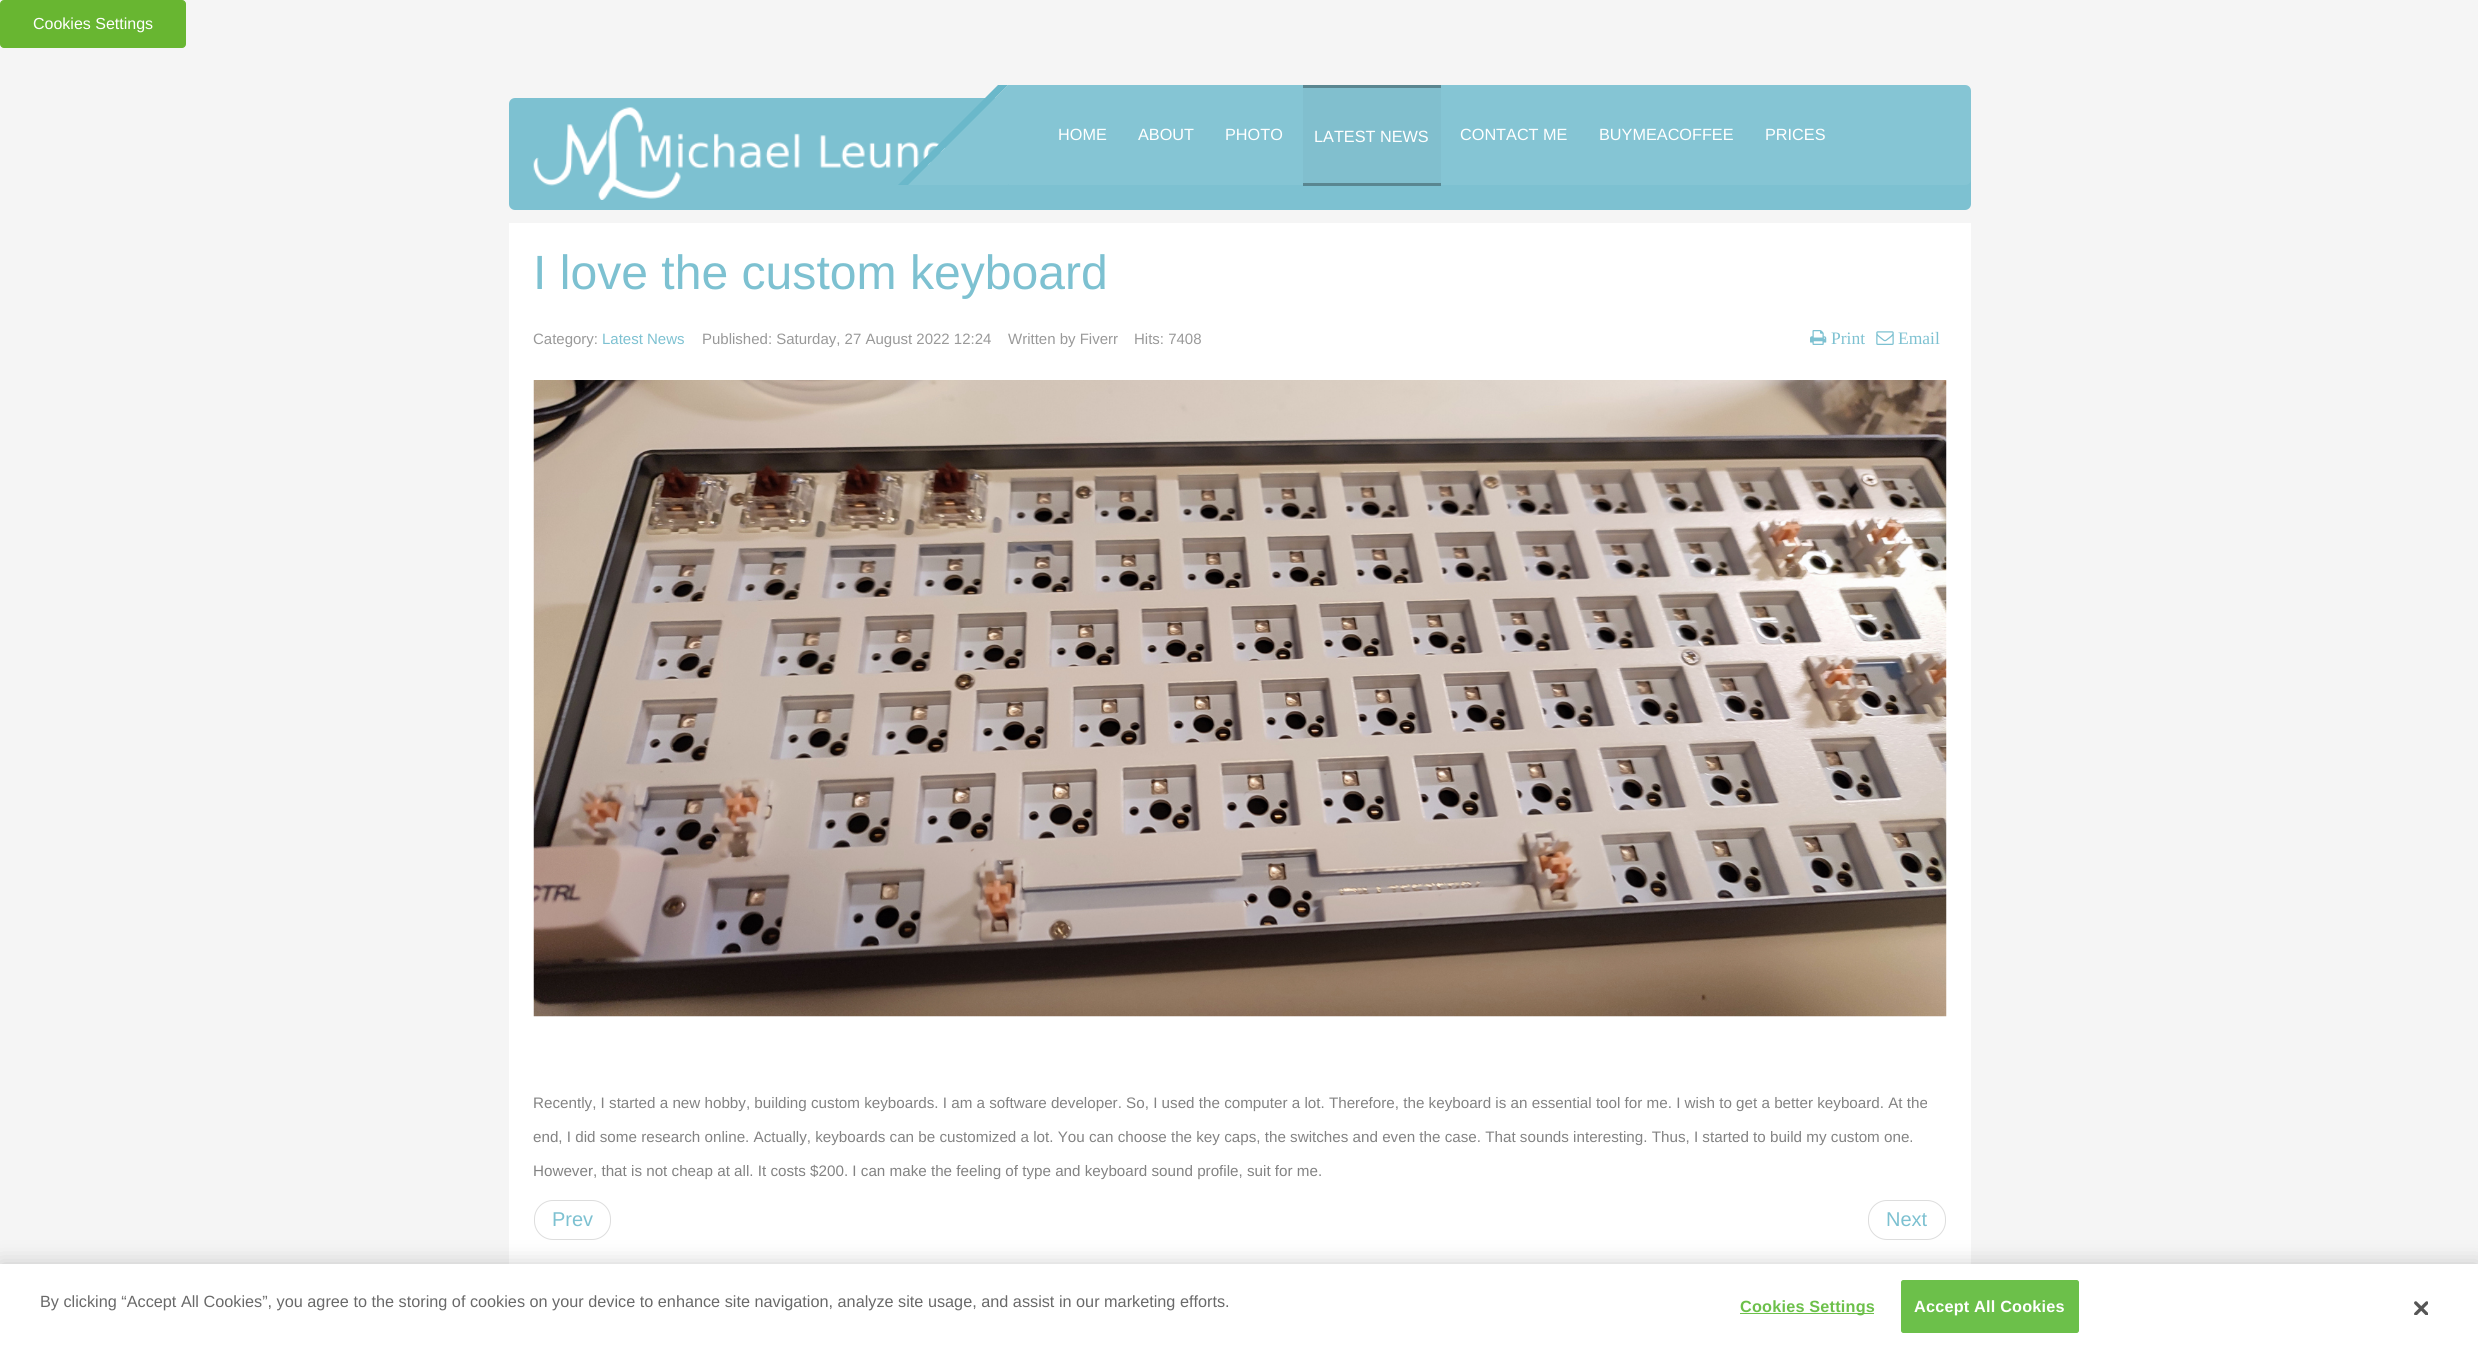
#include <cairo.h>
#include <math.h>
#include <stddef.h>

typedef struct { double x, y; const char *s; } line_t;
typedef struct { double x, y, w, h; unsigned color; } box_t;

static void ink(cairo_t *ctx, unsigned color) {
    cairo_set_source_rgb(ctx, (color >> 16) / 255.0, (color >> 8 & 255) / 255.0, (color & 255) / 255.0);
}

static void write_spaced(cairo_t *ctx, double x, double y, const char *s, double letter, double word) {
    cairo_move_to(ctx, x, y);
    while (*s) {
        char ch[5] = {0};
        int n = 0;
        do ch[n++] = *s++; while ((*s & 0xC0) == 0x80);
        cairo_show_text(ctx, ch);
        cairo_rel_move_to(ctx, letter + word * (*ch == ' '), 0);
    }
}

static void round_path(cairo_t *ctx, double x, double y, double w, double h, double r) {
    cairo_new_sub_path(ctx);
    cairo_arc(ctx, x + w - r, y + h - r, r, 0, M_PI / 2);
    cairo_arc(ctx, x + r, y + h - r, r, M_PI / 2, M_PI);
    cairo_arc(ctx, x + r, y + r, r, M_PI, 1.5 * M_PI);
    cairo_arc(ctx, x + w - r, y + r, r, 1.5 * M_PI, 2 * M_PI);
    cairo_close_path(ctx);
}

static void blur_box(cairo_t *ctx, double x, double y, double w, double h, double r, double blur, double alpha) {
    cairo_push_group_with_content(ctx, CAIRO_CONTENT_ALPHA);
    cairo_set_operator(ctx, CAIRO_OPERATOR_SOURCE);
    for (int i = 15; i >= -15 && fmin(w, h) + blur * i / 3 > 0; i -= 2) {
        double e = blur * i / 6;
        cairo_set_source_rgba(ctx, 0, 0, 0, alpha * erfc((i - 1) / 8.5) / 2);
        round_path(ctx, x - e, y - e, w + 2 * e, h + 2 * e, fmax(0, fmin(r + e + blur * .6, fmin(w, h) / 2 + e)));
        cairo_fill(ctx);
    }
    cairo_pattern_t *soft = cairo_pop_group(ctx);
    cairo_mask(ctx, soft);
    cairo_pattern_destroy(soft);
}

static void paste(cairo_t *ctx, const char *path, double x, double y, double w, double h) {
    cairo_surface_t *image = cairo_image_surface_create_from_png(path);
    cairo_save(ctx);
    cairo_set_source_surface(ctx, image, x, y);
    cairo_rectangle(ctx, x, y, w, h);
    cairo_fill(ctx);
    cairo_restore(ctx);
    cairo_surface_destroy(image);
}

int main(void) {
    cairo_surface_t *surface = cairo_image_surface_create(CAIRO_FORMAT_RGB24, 2478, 1352);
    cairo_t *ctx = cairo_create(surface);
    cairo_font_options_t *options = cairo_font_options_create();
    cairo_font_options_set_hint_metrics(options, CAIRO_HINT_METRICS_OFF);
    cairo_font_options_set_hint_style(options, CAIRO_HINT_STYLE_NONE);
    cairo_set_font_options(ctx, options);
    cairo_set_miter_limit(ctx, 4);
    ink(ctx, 0xF5F5F5);
    cairo_paint(ctx);
    ink(ctx, 0x68B631);
    round_path(ctx, 0.5, 0.5, 185, 47, 3.5);
    cairo_fill_preserve(ctx);
    cairo_set_line_width(ctx, 1);
    cairo_stroke(ctx);
    cairo_select_font_face(ctx, "Liberation Sans", CAIRO_FONT_SLANT_NORMAL, CAIRO_FONT_WEIGHT_NORMAL);
    cairo_set_font_size(ctx, 16);
    ink(ctx, 0xFFFFFF);
    cairo_move_to(ctx, 33, 29);
    cairo_show_text(ctx, "Cookies Settings");
    ink(ctx, 0x7DC1D1);
    round_path(ctx, 509, 98, 1462, 112, 6);
    cairo_fill(ctx);
    ink(ctx, 0x588792);
    cairo_rectangle(ctx, 1303, 185, 138, 1);
    cairo_fill(ctx);
    paste(ctx, "media/1.png", 533, 107, 412, 93);
    ink(ctx, 0x85C5D4);
    cairo_new_path(ctx);
    cairo_move_to(ctx, 1009, 85);
    cairo_line_to(ctx, 1965, 85);
    cairo_curve_to(ctx, 1968.5, 85, 1971, 87.5, 1971, 91);
    cairo_line_to(ctx, 1971, 179);
    cairo_curve_to(ctx, 1971, 182.5, 1968.5, 185, 1965, 185);
    cairo_line_to(ctx, 1009, 185);
    cairo_close_path(ctx);
    cairo_fill(ctx);
    cairo_new_path(ctx);
    cairo_move_to(ctx, 1008, 85);
    cairo_line_to(ctx, 1108, 85);
    cairo_line_to(ctx, 1008, 185);
    cairo_line_to(ctx, 908, 185);
    cairo_close_path(ctx);
    cairo_fill(ctx);
    ink(ctx, 0x6AB8CA);
    cairo_new_path(ctx);
    cairo_move_to(ctx, 998, 85);
    cairo_line_to(ctx, 1008, 85);
    cairo_line_to(ctx, 908, 185);
    cairo_line_to(ctx, 898, 185);
    cairo_close_path(ctx);
    cairo_fill(ctx);
    cairo_set_font_size(ctx, 16.25);
    ink(ctx, 0xFFFFFF);
    {
        static const line_t items[] = {
            {1058, 140, "HOME"},
            {1138, 140, "ABOUT"},
            {1225, 140, "PHOTO"},
        };
        for (size_t i = 0; i < sizeof items / sizeof *items; i++) {
            cairo_move_to(ctx, items[i].x, items[i].y);
            cairo_show_text(ctx, items[i].s);
        }
    }
    {
        static const box_t items[] = {
            {1303, 88, 138, 95, 0x81BFCE},
            {1303, 183, 138, 2, 0x5A8690},
            {1303, 85, 138, 3, 0x5A8690},
        };
        for (size_t i = 0; i < sizeof items / sizeof *items; i++) {
            ink(ctx, items[i].color);
            cairo_rectangle(ctx, items[i].x, items[i].y, items[i].w, items[i].h);
            cairo_fill(ctx);
        }
    }
    ink(ctx, 0xFFFFFF);
    {
        static const line_t items[] = {
            {1314, 142, "LATEST NEWS"},
            {1460, 140, "CONTACT ME"},
            {1599, 140, "BUYMEACOFFEE"},
            {1765, 140, "PRICES"},
        };
        for (size_t i = 0; i < sizeof items / sizeof *items; i++) {
            cairo_move_to(ctx, items[i].x, items[i].y);
            cairo_show_text(ctx, items[i].s);
        }
    }
    cairo_rectangle(ctx, 509, 223, 1462, 1041);
    cairo_fill(ctx);
    cairo_set_font_size(ctx, 48.1);
    ink(ctx, 0x7DC1D1);
    cairo_move_to(ctx, 533, 289);
    cairo_show_text(ctx, "I love the custom keyboard");
    cairo_set_font_size(ctx, 15);
    ink(ctx, 0x999999);
    cairo_move_to(ctx, 533, 344);
    cairo_show_text(ctx, "Category:");
    ink(ctx, 0x7DC1D1);
    cairo_move_to(ctx, 602, 344);
    cairo_show_text(ctx, "Latest News");
    ink(ctx, 0x999999);
    {
        static const line_t items[] = {
            {702, 344, "Published: Saturday, 27 August 2022 12:24"},
            {1008, 344, "Written by Fiverr"},
            {1134, 344, "Hits: 7408"},
        };
        for (size_t i = 0; i < sizeof items / sizeof *items; i++) {
            cairo_move_to(ctx, items[i].x, items[i].y);
            cairo_show_text(ctx, items[i].s);
        }
    }
    paste(ctx, "media/2.png", 1810, 330, 17, 15);
    cairo_select_font_face(ctx, "Liberation Serif", CAIRO_FONT_SLANT_NORMAL, CAIRO_FONT_WEIGHT_NORMAL);
    cairo_set_font_size(ctx, 17.5);
    ink(ctx, 0x7DC1D1);
    cairo_move_to(ctx, 1831, 344);
    cairo_show_text(ctx, "Print");
    paste(ctx, "media/3.png", 1876, 331, 18, 14);
    cairo_move_to(ctx, 1898, 344);
    cairo_show_text(ctx, "Email");
    paste(ctx, "media/4.png", 533, 380, 1414, 637);
    cairo_select_font_face(ctx, "Liberation Sans", CAIRO_FONT_SLANT_NORMAL, CAIRO_FONT_WEIGHT_NORMAL);
    cairo_set_font_size(ctx, 15.2);
    ink(ctx, 0x838383);
    {
        static const line_t items[] = {
            {533, 1108, "Recently, I started a new hobby, building custom keyboards. I am a software developer. So, I used the computer a lot. Therefore, the keyboard is an essential tool for me. I wish to get a better keyboard. At the"},
            {533, 1142, "end, I did some research online. Actually, keyboards can be customized a lot. You can choose the key caps, the switches and even the case. That sounds interesting. Thus, I started to build my custom one."},
            {533, 1176, "However, that is not cheap at all. It costs $200. I can make the feeling of type and keyboard sound profile, suit for me."},
        };
        for (size_t i = 0; i < sizeof items / sizeof *items; i++) {
            cairo_move_to(ctx, items[i].x, items[i].y);
            cairo_show_text(ctx, items[i].s);
        }
    }
    round_path(ctx, 534.5, 1200.5, 76, 39, 18.5);
    ink(ctx, 0xDDDDDD);
    cairo_stroke(ctx);
    cairo_set_font_size(ctx, 20);
    ink(ctx, 0x7DC1D1);
    cairo_move_to(ctx, 552, 1226);
    cairo_show_text(ctx, "Prev");
    round_path(ctx, 1868.5, 1200.5, 77, 39, 18.5);
    ink(ctx, 0xDDDDDD);
    cairo_stroke(ctx);
    ink(ctx, 0x7DC1D1);
    cairo_move_to(ctx, 1886, 1226);
    cairo_show_text(ctx, "Next");
    ink(ctx, 0x000000);
    blur_box(ctx, 0, 1264, 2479, 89, 0, 11, 0.2);
    ink(ctx, 0xFFFFFF);
    cairo_rectangle(ctx, 0, 1264, 2478, 88);
    cairo_fill(ctx);
    cairo_set_font_size(ctx, 16.25);
    ink(ctx, 0x696969);
    cairo_move_to(ctx, 40, 1307);
    cairo_show_text(ctx, "By clicking “Accept All Cookies”, you agree to the storing of cookies on your device to enhance site navigation, analyze site usage, and assist in our marketing efforts.");
    ink(ctx, 0x6CC04A);
    cairo_rectangle(ctx, 1740, 1313, 134, 1);
    cairo_fill(ctx);
    cairo_select_font_face(ctx, "Liberation Sans", CAIRO_FONT_SLANT_NORMAL, CAIRO_FONT_WEIGHT_BOLD);
    write_spaced(ctx, 1740, 1312, "Cookies Settings", 0.2, 0);
    round_path(ctx, 1901.5, 1280.5, 177, 52, 2);
    cairo_fill_preserve(ctx);
    cairo_stroke(ctx);
    ink(ctx, 0xFFFFFF);
    write_spaced(ctx, 1914, 1312, "Accept All Cookies", 0.2, 0);
    paste(ctx, "media/5.png", 2414, 1301, 14, 14);
    cairo_surface_write_to_png(surface, "image.png");
    cairo_font_options_destroy(options);
    cairo_destroy(ctx);
    cairo_surface_destroy(surface);
    return 0;
}
